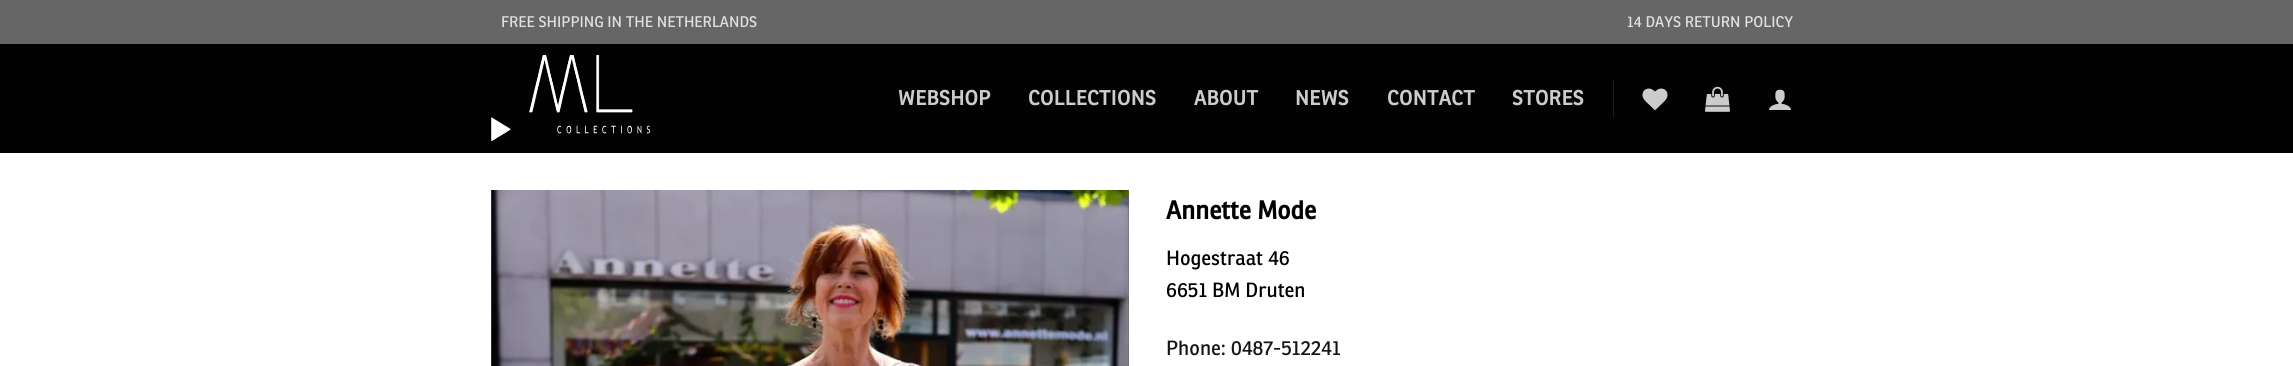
#include <cairo.h>
#include <math.h>
#include <stddef.h>

typedef struct { double x, y; const char *s; } line_t;

static void ink(cairo_t *ctx, unsigned color) {
    cairo_set_source_rgb(ctx, (color >> 16) / 255.0, (color >> 8 & 255) / 255.0, (color & 255) / 255.0);
}

static void write_spaced(cairo_t *ctx, double x, double y, const char *s, double letter, double word) {
    cairo_move_to(ctx, x, y);
    while (*s) {
        char ch[5] = {0};
        int n = 0;
        do ch[n++] = *s++; while ((*s & 0xC0) == 0x80);
        cairo_show_text(ctx, ch);
        cairo_rel_move_to(ctx, letter + word * (*ch == ' '), 0);
    }
}

static void paste(cairo_t *ctx, const char *path, double x, double y, double w, double h) {
    cairo_surface_t *image = cairo_image_surface_create_from_png(path);
    cairo_save(ctx);
    cairo_set_source_surface(ctx, image, x, y);
    cairo_rectangle(ctx, x, y, w, h);
    cairo_fill(ctx);
    cairo_restore(ctx);
    cairo_surface_destroy(image);
}

int main(void) {
    cairo_surface_t *surface = cairo_image_surface_create(CAIRO_FORMAT_RGB24, 2293, 366);
    cairo_t *ctx = cairo_create(surface);
    cairo_font_options_t *options = cairo_font_options_create();
    cairo_font_options_set_hint_metrics(options, CAIRO_HINT_METRICS_OFF);
    cairo_font_options_set_hint_style(options, CAIRO_HINT_STYLE_NONE);
    cairo_set_font_options(ctx, options);
    cairo_set_miter_limit(ctx, 4);
    ink(ctx, 0xFFFFFF);
    cairo_paint(ctx);
    ink(ctx, 0x666666);
    cairo_rectangle(ctx, 0, 0, 2293, 44);
    cairo_fill(ctx);
    cairo_select_font_face(ctx, "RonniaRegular", CAIRO_FONT_SLANT_NORMAL, CAIRO_FONT_WEIGHT_NORMAL);
    cairo_set_font_size(ctx, 15);
    ink(ctx, 0xE0E0E0);
    cairo_move_to(ctx, 501, 27);
    cairo_show_text(ctx, "FREE SHIPPING IN THE NETHERLANDS");
    cairo_move_to(ctx, 1627, 27);
    cairo_show_text(ctx, "14 DAYS RETURN POLICY");
    ink(ctx, 0x020202);
    cairo_rectangle(ctx, 0, 44, 2293, 109);
    cairo_fill(ctx);
    paste(ctx, "media/1.png", 491, 55, 159, 86);
    cairo_select_font_face(ctx, "RonniaRegular", CAIRO_FONT_SLANT_NORMAL, CAIRO_FONT_WEIGHT_BOLD);
    cairo_set_font_size(ctx, 20);
    ink(ctx, 0xCCCCCC);
    {
        static const line_t items[] = {
            {898, 105, "WEBSHOP"},
            {1028, 105, "COLLECTIONS"},
            {1194, 105, "ABOUT"},
            {1295, 105, "NEWS"},
            {1387, 105, "CONTACT"},
            {1512, 105, "STORES"},
        };
        for (size_t i = 0; i < sizeof items / sizeof *items; i++) {
            write_spaced(ctx, items[i].x, items[i].y, items[i].s, 0.4, 0);
        }
    }
    ink(ctx, 0x1B1B1B);
    cairo_rectangle(ctx, 1613, 80, 1, 38);
    cairo_fill(ctx);
    paste(ctx, "media/2.png", 1642, 88, 26, 22);
    paste(ctx, "media/3.png", 1705, 86, 25, 26);
    paste(ctx, "media/4.png", 1769, 89, 22, 21);
    ink(ctx, 0x666666);
    cairo_rectangle(ctx, 491, 190, 638, 176);
    cairo_fill(ctx);
    paste(ctx, "media/5.png", 491, 190, 638, 176);
    cairo_set_font_size(ctx, 25);
    ink(ctx, 0x000000);
    cairo_move_to(ctx, 1166, 219);
    cairo_show_text(ctx, "Annette Mode");
    cairo_select_font_face(ctx, "RonniaRegular", CAIRO_FONT_SLANT_NORMAL, CAIRO_FONT_WEIGHT_NORMAL);
    cairo_set_font_size(ctx, 20);
    cairo_move_to(ctx, 1166, 265);
    cairo_show_text(ctx, "Hogestraat 46");
    cairo_move_to(ctx, 1166, 297);
    cairo_show_text(ctx, "6651 BM Druten");
    ink(ctx, 0x161616);
    cairo_move_to(ctx, 1166, 355);
    cairo_show_text(ctx, "Phone: 0487-512241");
    cairo_surface_write_to_png(surface, "image.png");
    cairo_font_options_destroy(options);
    cairo_destroy(ctx);
    cairo_surface_destroy(surface);
    return 0;
}
